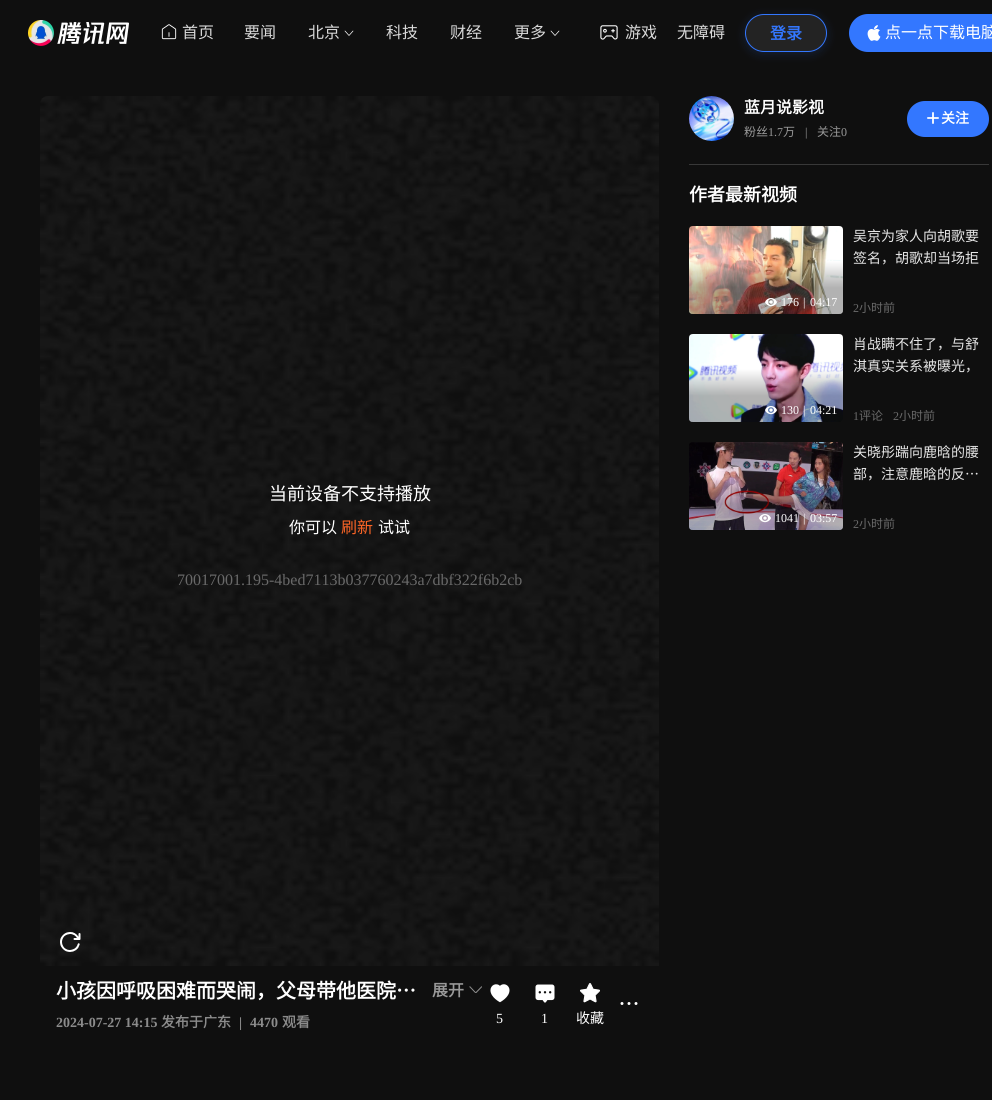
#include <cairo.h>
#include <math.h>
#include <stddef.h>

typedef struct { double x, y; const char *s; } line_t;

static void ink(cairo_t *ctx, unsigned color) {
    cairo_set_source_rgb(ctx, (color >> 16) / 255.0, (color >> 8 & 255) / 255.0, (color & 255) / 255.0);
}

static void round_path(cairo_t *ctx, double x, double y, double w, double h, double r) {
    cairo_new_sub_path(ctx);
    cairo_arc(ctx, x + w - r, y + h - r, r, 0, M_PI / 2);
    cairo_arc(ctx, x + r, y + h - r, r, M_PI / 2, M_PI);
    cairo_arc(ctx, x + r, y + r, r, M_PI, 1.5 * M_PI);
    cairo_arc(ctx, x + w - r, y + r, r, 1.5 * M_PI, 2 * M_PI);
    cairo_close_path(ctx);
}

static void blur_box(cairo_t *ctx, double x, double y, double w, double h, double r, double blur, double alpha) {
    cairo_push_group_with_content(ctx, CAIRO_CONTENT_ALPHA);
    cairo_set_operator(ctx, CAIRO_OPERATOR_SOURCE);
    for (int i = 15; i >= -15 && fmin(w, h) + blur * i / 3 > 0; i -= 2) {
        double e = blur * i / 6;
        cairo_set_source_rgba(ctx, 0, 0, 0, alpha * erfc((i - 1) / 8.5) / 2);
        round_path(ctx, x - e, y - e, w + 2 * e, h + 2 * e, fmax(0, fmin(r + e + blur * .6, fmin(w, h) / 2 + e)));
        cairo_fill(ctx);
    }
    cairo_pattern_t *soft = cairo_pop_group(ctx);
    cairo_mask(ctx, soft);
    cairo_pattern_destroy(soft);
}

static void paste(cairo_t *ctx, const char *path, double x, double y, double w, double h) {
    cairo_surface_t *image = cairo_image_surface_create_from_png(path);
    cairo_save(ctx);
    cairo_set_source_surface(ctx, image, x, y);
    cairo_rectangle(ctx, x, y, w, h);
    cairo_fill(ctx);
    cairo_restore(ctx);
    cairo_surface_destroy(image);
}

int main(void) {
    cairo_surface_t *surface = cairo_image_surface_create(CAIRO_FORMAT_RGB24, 992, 1100);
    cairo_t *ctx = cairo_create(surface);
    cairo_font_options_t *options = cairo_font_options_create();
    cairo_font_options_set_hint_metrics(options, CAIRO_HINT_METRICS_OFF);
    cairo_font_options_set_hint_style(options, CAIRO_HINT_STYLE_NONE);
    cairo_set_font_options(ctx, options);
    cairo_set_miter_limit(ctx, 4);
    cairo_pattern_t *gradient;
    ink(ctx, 0x0F0F0F);
    cairo_paint(ctx);
    paste(ctx, "media/1.png", 28, 20, 101, 26);
    paste(ctx, "media/2.png", 161, 24, 16, 16);
    cairo_select_font_face(ctx, "Noto Sans CJK SC", CAIRO_FONT_SLANT_NORMAL, CAIRO_FONT_WEIGHT_NORMAL);
    cairo_set_font_size(ctx, 16);
    ink(ctx, 0xD9D9D9);
    {
        static const line_t items[] = {
            {182, 38, "首页"},
            {244, 38, "要闻"},
            {308, 38, "北京"},
        };
        for (size_t i = 0; i < sizeof items / sizeof *items; i++) {
            cairo_move_to(ctx, items[i].x, items[i].y);
            cairo_show_text(ctx, items[i].s);
        }
    }
    cairo_new_path(ctx);
    cairo_move_to(ctx, 353, 31);
    cairo_line_to(ctx, 349, 35.5);
    cairo_line_to(ctx, 345, 31);
    ink(ctx, 0xFFFFFF);
    cairo_set_line_width(ctx, 0.7);
    cairo_set_line_cap(ctx, CAIRO_LINE_CAP_ROUND);
    cairo_set_line_join(ctx, CAIRO_LINE_JOIN_ROUND);
    cairo_stroke(ctx);
    ink(ctx, 0xD9D9D9);
    {
        static const line_t items[] = {
            {386, 38, "科技"},
            {450, 38, "财经"},
            {514, 38, "更多"},
        };
        for (size_t i = 0; i < sizeof items / sizeof *items; i++) {
            cairo_move_to(ctx, items[i].x, items[i].y);
            cairo_show_text(ctx, items[i].s);
        }
    }
    cairo_new_path(ctx);
    cairo_move_to(ctx, 559, 31);
    cairo_line_to(ctx, 555, 35.5);
    cairo_line_to(ctx, 551, 31);
    ink(ctx, 0xFFFFFF);
    cairo_stroke(ctx);
    paste(ctx, "media/3.png", 600, 25, 18, 15);
    ink(ctx, 0xD9D9D9);
    cairo_move_to(ctx, 625, 38);
    cairo_show_text(ctx, "游戏");
    cairo_move_to(ctx, 677, 38);
    cairo_show_text(ctx, "无障碍");
    cairo_save(ctx);
    cairo_set_fill_rule(ctx, CAIRO_FILL_RULE_EVEN_ODD);
    cairo_new_path(ctx);
    cairo_move_to(ctx, 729, 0);
    cairo_line_to(ctx, 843, 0);
    cairo_line_to(ctx, 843, 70);
    cairo_line_to(ctx, 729, 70);
    cairo_close_path(ctx);
    cairo_move_to(ctx, 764, 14);
    cairo_line_to(ctx, 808, 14);
    cairo_curve_to(ctx, 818.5, 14, 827, 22.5, 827, 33);
    cairo_curve_to(ctx, 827, 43.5, 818.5, 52, 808, 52);
    cairo_line_to(ctx, 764, 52);
    cairo_curve_to(ctx, 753.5, 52, 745, 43.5, 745, 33);
    cairo_curve_to(ctx, 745, 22.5, 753.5, 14, 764, 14);
    cairo_close_path(ctx);
    cairo_clip(ctx);
    ink(ctx, 0x3377FF);
    blur_box(ctx, 745, 16, 82, 38, 19, 5, 0.16);
    cairo_restore(ctx);
    cairo_set_source_rgba(ctx, 0.851, 0.851, 0.851, 0.1);
    round_path(ctx, 745.5, 14.5, 81, 37, 18.5);
    cairo_fill_preserve(ctx);
    ink(ctx, 0x3377FF);
    cairo_set_line_width(ctx, 1);
    cairo_set_line_cap(ctx, CAIRO_LINE_CAP_BUTT);
    cairo_set_line_join(ctx, CAIRO_LINE_JOIN_MITER);
    cairo_stroke(ctx);
    cairo_select_font_face(ctx, "Noto Sans CJK SC", CAIRO_FONT_SLANT_NORMAL, CAIRO_FONT_WEIGHT_BOLD);
    cairo_move_to(ctx, 770, 39);
    cairo_show_text(ctx, "登录");
    round_path(ctx, 849, 14, 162, 38, 19);
    cairo_fill(ctx);
    paste(ctx, "media/4.png", 867, 25, 14, 16);
    cairo_select_font_face(ctx, "Noto Sans CJK SC", CAIRO_FONT_SLANT_NORMAL, CAIRO_FONT_WEIGHT_NORMAL);
    ink(ctx, 0xFFFFFF);
    cairo_move_to(ctx, 885, 38);
    cairo_show_text(ctx, "点一点下载电脑");
    paste(ctx, "media/5.png", 689, 96, 45, 45);
    cairo_select_font_face(ctx, "Noto Sans CJK SC", CAIRO_FONT_SLANT_NORMAL, CAIRO_FONT_WEIGHT_BOLD);
    cairo_move_to(ctx, 744, 113);
    cairo_show_text(ctx, "蓝月说影视");
    cairo_select_font_face(ctx, "Noto Sans CJK SC", CAIRO_FONT_SLANT_NORMAL, CAIRO_FONT_WEIGHT_NORMAL);
    cairo_set_font_size(ctx, 12);
    ink(ctx, 0x999999);
    cairo_move_to(ctx, 744, 136);
    cairo_show_text(ctx, "粉丝");
    cairo_select_font_face(ctx, "Liberation Serif", CAIRO_FONT_SLANT_NORMAL, CAIRO_FONT_WEIGHT_NORMAL);
    cairo_move_to(ctx, 768, 136);
    cairo_show_text(ctx, "1.7");
    cairo_select_font_face(ctx, "Noto Sans CJK SC", CAIRO_FONT_SLANT_NORMAL, CAIRO_FONT_WEIGHT_NORMAL);
    cairo_move_to(ctx, 783, 136);
    cairo_show_text(ctx, "万");
    cairo_select_font_face(ctx, "Liberation Serif", CAIRO_FONT_SLANT_NORMAL, CAIRO_FONT_WEIGHT_NORMAL);
    cairo_move_to(ctx, 805, 136);
    cairo_show_text(ctx, "|");
    cairo_select_font_face(ctx, "Noto Sans CJK SC", CAIRO_FONT_SLANT_NORMAL, CAIRO_FONT_WEIGHT_NORMAL);
    cairo_move_to(ctx, 817, 136);
    cairo_show_text(ctx, "关注");
    cairo_select_font_face(ctx, "Liberation Serif", CAIRO_FONT_SLANT_NORMAL, CAIRO_FONT_WEIGHT_NORMAL);
    cairo_move_to(ctx, 841, 136);
    cairo_show_text(ctx, "0");
    ink(ctx, 0x3377FF);
    round_path(ctx, 907, 101, 82, 36, 18);
    cairo_fill(ctx);
    paste(ctx, "media/6.png", 927, 112, 12, 12);
    cairo_select_font_face(ctx, "Noto Sans CJK SC", CAIRO_FONT_SLANT_NORMAL, CAIRO_FONT_WEIGHT_BOLD);
    cairo_set_font_size(ctx, 14);
    ink(ctx, 0xFFFFFF);
    cairo_move_to(ctx, 941, 123);
    cairo_show_text(ctx, "关注");
    ink(ctx, 0x383838);
    cairo_rectangle(ctx, 689, 164, 300, 1);
    cairo_fill(ctx);
    cairo_set_font_size(ctx, 18);
    ink(ctx, 0xFFFFFF);
    cairo_move_to(ctx, 689, 201);
    cairo_show_text(ctx, "作者最新视频");
    paste(ctx, "media/7.png", 689, 226, 154, 88);
    gradient = cairo_pattern_create_linear(766, 314, 766, 226);
    cairo_pattern_add_color_stop_rgba(gradient, 0.3, 0, 0, 0, 0.3);
    cairo_pattern_add_color_stop_rgba(gradient, 0.6, 0, 0, 0, 0);
    cairo_set_source(ctx, gradient);
    cairo_pattern_destroy(gradient);
    round_path(ctx, 689, 226, 154, 88, 4);
    cairo_fill(ctx);
    paste(ctx, "media/8.png", 765, 298, 12, 9);
    cairo_select_font_face(ctx, "Liberation Serif", CAIRO_FONT_SLANT_NORMAL, CAIRO_FONT_WEIGHT_NORMAL);
    cairo_set_font_size(ctx, 12);
    ink(ctx, 0xFFFFFF);
    {
        static const line_t items[] = {
            {781, 306, "176"},
            {803, 306, "|"},
            {810, 306, "04:17"},
        };
        for (size_t i = 0; i < sizeof items / sizeof *items; i++) {
            cairo_move_to(ctx, items[i].x, items[i].y);
            cairo_show_text(ctx, items[i].s);
        }
    }
    cairo_select_font_face(ctx, "Noto Sans CJK SC", CAIRO_FONT_SLANT_NORMAL, CAIRO_FONT_WEIGHT_NORMAL);
    cairo_set_font_size(ctx, 14);
    ink(ctx, 0xE6E6E6);
    cairo_move_to(ctx, 853, 241);
    cairo_show_text(ctx, "吴京为家人向胡歌要");
    cairo_move_to(ctx, 853, 263);
    cairo_show_text(ctx, "签名，胡歌却当场拒");
    cairo_select_font_face(ctx, "Liberation Serif", CAIRO_FONT_SLANT_NORMAL, CAIRO_FONT_WEIGHT_NORMAL);
    cairo_set_font_size(ctx, 12);
    ink(ctx, 0x696969);
    cairo_move_to(ctx, 853, 312);
    cairo_show_text(ctx, "2");
    cairo_select_font_face(ctx, "Noto Sans CJK SC", CAIRO_FONT_SLANT_NORMAL, CAIRO_FONT_WEIGHT_NORMAL);
    cairo_move_to(ctx, 859, 312);
    cairo_show_text(ctx, "小时前");
    paste(ctx, "media/9.png", 689, 334, 154, 88);
    gradient = cairo_pattern_create_linear(766, 422, 766, 334);
    cairo_pattern_add_color_stop_rgba(gradient, 0.3, 0, 0, 0, 0.3);
    cairo_pattern_add_color_stop_rgba(gradient, 0.6, 0, 0, 0, 0);
    cairo_set_source(ctx, gradient);
    cairo_pattern_destroy(gradient);
    round_path(ctx, 689, 334, 154, 88, 4);
    cairo_fill(ctx);
    paste(ctx, "media/10.png", 765, 406, 12, 9);
    cairo_select_font_face(ctx, "Liberation Serif", CAIRO_FONT_SLANT_NORMAL, CAIRO_FONT_WEIGHT_NORMAL);
    ink(ctx, 0xFFFFFF);
    {
        static const line_t items[] = {
            {781, 414, "130"},
            {803, 414, "|"},
            {810, 414, "04:21"},
        };
        for (size_t i = 0; i < sizeof items / sizeof *items; i++) {
            cairo_move_to(ctx, items[i].x, items[i].y);
            cairo_show_text(ctx, items[i].s);
        }
    }
    cairo_select_font_face(ctx, "Noto Sans CJK SC", CAIRO_FONT_SLANT_NORMAL, CAIRO_FONT_WEIGHT_NORMAL);
    cairo_set_font_size(ctx, 14);
    ink(ctx, 0xE6E6E6);
    cairo_move_to(ctx, 853, 349);
    cairo_show_text(ctx, "肖战瞒不住了，与舒");
    cairo_move_to(ctx, 853, 371);
    cairo_show_text(ctx, "淇真实关系被曝光，");
    cairo_select_font_face(ctx, "Liberation Serif", CAIRO_FONT_SLANT_NORMAL, CAIRO_FONT_WEIGHT_NORMAL);
    cairo_set_font_size(ctx, 12);
    ink(ctx, 0x696969);
    cairo_move_to(ctx, 853, 420);
    cairo_show_text(ctx, "1");
    cairo_select_font_face(ctx, "Noto Sans CJK SC", CAIRO_FONT_SLANT_NORMAL, CAIRO_FONT_WEIGHT_NORMAL);
    cairo_move_to(ctx, 859, 420);
    cairo_show_text(ctx, "评论");
    cairo_select_font_face(ctx, "Liberation Serif", CAIRO_FONT_SLANT_NORMAL, CAIRO_FONT_WEIGHT_NORMAL);
    cairo_move_to(ctx, 893, 420);
    cairo_show_text(ctx, "2");
    cairo_select_font_face(ctx, "Noto Sans CJK SC", CAIRO_FONT_SLANT_NORMAL, CAIRO_FONT_WEIGHT_NORMAL);
    cairo_move_to(ctx, 899, 420);
    cairo_show_text(ctx, "小时前");
    paste(ctx, "media/11.png", 689, 442, 154, 88);
    gradient = cairo_pattern_create_linear(766, 530, 766, 442);
    cairo_pattern_add_color_stop_rgba(gradient, 0.3, 0, 0, 0, 0.3);
    cairo_pattern_add_color_stop_rgba(gradient, 0.6, 0, 0, 0, 0);
    cairo_set_source(ctx, gradient);
    cairo_pattern_destroy(gradient);
    round_path(ctx, 689, 442, 154, 88, 4);
    cairo_fill(ctx);
    paste(ctx, "media/12.png", 759, 514, 12, 9);
    cairo_select_font_face(ctx, "Liberation Serif", CAIRO_FONT_SLANT_NORMAL, CAIRO_FONT_WEIGHT_NORMAL);
    ink(ctx, 0xFFFFFF);
    {
        static const line_t items[] = {
            {775, 522, "1041"},
            {803, 522, "|"},
            {810, 522, "03:57"},
        };
        for (size_t i = 0; i < sizeof items / sizeof *items; i++) {
            cairo_move_to(ctx, items[i].x, items[i].y);
            cairo_show_text(ctx, items[i].s);
        }
    }
    cairo_select_font_face(ctx, "Noto Sans CJK SC", CAIRO_FONT_SLANT_NORMAL, CAIRO_FONT_WEIGHT_NORMAL);
    cairo_set_font_size(ctx, 14);
    ink(ctx, 0xE6E6E6);
    cairo_move_to(ctx, 853, 457);
    cairo_show_text(ctx, "关晓彤踹向鹿晗的腰");
    cairo_move_to(ctx, 853, 479);
    cairo_show_text(ctx, "部，注意鹿晗的反…");
    cairo_select_font_face(ctx, "Liberation Serif", CAIRO_FONT_SLANT_NORMAL, CAIRO_FONT_WEIGHT_NORMAL);
    cairo_set_font_size(ctx, 12);
    ink(ctx, 0x696969);
    cairo_move_to(ctx, 853, 528);
    cairo_show_text(ctx, "2");
    cairo_select_font_face(ctx, "Noto Sans CJK SC", CAIRO_FONT_SLANT_NORMAL, CAIRO_FONT_WEIGHT_NORMAL);
    cairo_move_to(ctx, 859, 528);
    cairo_show_text(ctx, "小时前");
    paste(ctx, "media/13.png", 40, 96, 619, 870);
    cairo_set_font_size(ctx, 18);
    ink(ctx, 0xFFFFFF);
    cairo_move_to(ctx, 269, 500);
    cairo_show_text(ctx, "当前设备不支持播放");
    cairo_set_font_size(ctx, 16);
    cairo_move_to(ctx, 289, 533);
    cairo_show_text(ctx, "你可以");
    ink(ctx, 0xFC6526);
    cairo_move_to(ctx, 341, 533);
    cairo_show_text(ctx, "刷新");
    ink(ctx, 0xFFFFFF);
    cairo_move_to(ctx, 378, 533);
    cairo_show_text(ctx, "试试");
    cairo_select_font_face(ctx, "Liberation Serif", CAIRO_FONT_SLANT_NORMAL, CAIRO_FONT_WEIGHT_NORMAL);
    ink(ctx, 0x696969);
    cairo_move_to(ctx, 177, 585);
    cairo_show_text(ctx, "70017001.195-4bed7113b037760243a7dbf322f6b2cb");
    cairo_select_font_face(ctx, "Noto Sans CJK SC", CAIRO_FONT_SLANT_NORMAL, CAIRO_FONT_WEIGHT_BOLD);
    cairo_set_font_size(ctx, 20);
    ink(ctx, 0xFFFFFF);
    cairo_move_to(ctx, 56, 998);
    cairo_show_text(ctx, "小孩因呼吸困难而哭闹，父母带他医院…");
    cairo_set_font_size(ctx, 16);
    ink(ctx, 0x999999);
    cairo_move_to(ctx, 432, 996);
    cairo_show_text(ctx, "展开");
    paste(ctx, "media/14.png", 469, 986, 13, 7);
    cairo_select_font_face(ctx, "Liberation Serif", CAIRO_FONT_SLANT_NORMAL, CAIRO_FONT_WEIGHT_BOLD);
    cairo_set_font_size(ctx, 14);
    ink(ctx, 0x8B8B8B);
    cairo_move_to(ctx, 56, 1027);
    cairo_show_text(ctx, "2024-07-27 14:15");
    cairo_select_font_face(ctx, "Noto Sans CJK SC", CAIRO_FONT_SLANT_NORMAL, CAIRO_FONT_WEIGHT_BOLD);
    cairo_move_to(ctx, 161, 1027);
    cairo_show_text(ctx, "发布于广东");
    cairo_select_font_face(ctx, "Liberation Serif", CAIRO_FONT_SLANT_NORMAL, CAIRO_FONT_WEIGHT_BOLD);
    cairo_move_to(ctx, 239, 1027);
    cairo_show_text(ctx, "|");
    cairo_move_to(ctx, 250, 1027);
    cairo_show_text(ctx, "4470");
    cairo_select_font_face(ctx, "Noto Sans CJK SC", CAIRO_FONT_SLANT_NORMAL, CAIRO_FONT_WEIGHT_BOLD);
    cairo_move_to(ctx, 282, 1027);
    cairo_show_text(ctx, "观看");
    paste(ctx, "media/15.png", 620, 1002, 18, 3);
    paste(ctx, "media/16.png", 490, 984, 20, 19);
    cairo_select_font_face(ctx, "Liberation Serif", CAIRO_FONT_SLANT_NORMAL, CAIRO_FONT_WEIGHT_NORMAL);
    ink(ctx, 0xFFFFFF);
    cairo_move_to(ctx, 496, 1023);
    cairo_show_text(ctx, "5");
    paste(ctx, "media/17.png", 535, 984, 20, 19);
    cairo_move_to(ctx, 541, 1023);
    cairo_show_text(ctx, "1");
    paste(ctx, "media/18.png", 580, 983, 20, 20);
    cairo_select_font_face(ctx, "Noto Sans CJK SC", CAIRO_FONT_SLANT_NORMAL, CAIRO_FONT_WEIGHT_NORMAL);
    cairo_move_to(ctx, 576, 1023);
    cairo_show_text(ctx, "收藏");
    cairo_surface_write_to_png(surface, "image.png");
    cairo_font_options_destroy(options);
    cairo_destroy(ctx);
    cairo_surface_destroy(surface);
    return 0;
}
